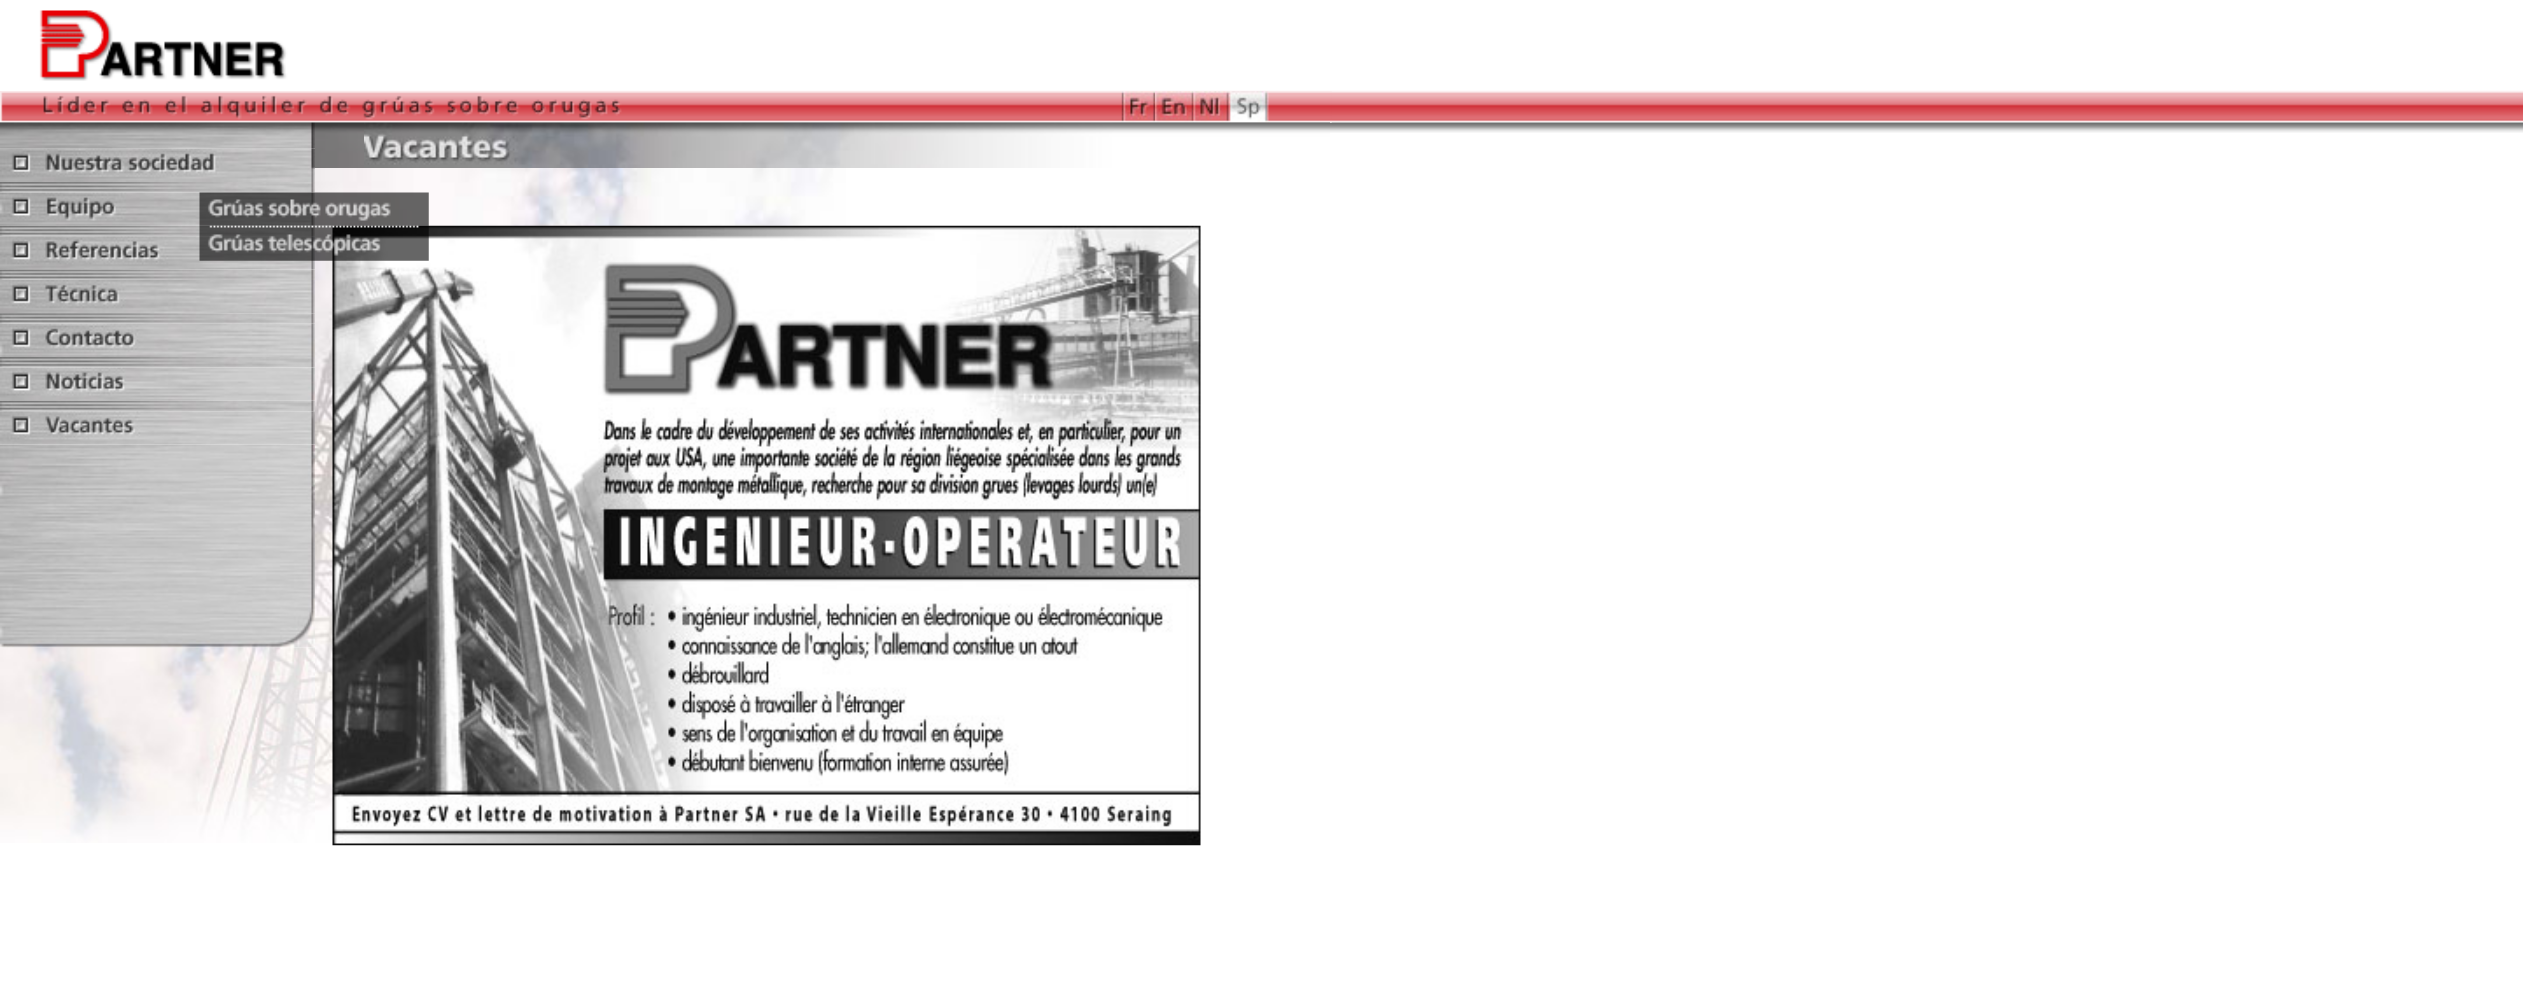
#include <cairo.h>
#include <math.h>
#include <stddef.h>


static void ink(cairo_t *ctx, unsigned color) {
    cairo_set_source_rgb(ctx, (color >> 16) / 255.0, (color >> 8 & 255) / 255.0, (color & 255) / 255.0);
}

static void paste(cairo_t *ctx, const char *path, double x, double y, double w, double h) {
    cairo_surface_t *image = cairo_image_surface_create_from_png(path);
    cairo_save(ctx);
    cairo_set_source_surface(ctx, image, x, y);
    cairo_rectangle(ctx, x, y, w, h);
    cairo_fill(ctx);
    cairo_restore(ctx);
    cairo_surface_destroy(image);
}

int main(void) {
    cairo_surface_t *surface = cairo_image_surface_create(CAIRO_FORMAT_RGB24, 2523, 994);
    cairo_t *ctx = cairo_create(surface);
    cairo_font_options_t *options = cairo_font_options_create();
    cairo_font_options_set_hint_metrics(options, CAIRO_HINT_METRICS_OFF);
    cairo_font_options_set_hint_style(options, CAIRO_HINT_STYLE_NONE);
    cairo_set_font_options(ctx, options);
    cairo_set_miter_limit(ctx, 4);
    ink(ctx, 0xFFFFFF);
    cairo_paint(ctx);
    paste(ctx, "media/1.png", 0, 90, 2523, 43);
    paste(ctx, "media/2.png", 0, 10, 315, 81);
    paste(ctx, "media/3.png", 0, 91, 315, 32);
    paste(ctx, "media/4.png", 315, 91, 807, 32);
    paste(ctx, "media/5.png", 1121, 91, 34, 32);
    paste(ctx, "media/6.png", 1155, 91, 39, 32);
    paste(ctx, "media/7.png", 1193, 91, 38, 32);
    paste(ctx, "media/8.png", 1230, 91, 39, 32);
    paste(ctx, "media/9.png", 1268, 91, 64, 32);
    paste(ctx, "media/10.png", 0, 122, 315, 27);
    paste(ctx, "media/11.png", 0, 148, 315, 34);
    paste(ctx, "media/12.png", 0, 182, 315, 11);
    paste(ctx, "media/13.png", 0, 192, 315, 34);
    paste(ctx, "media/14.png", 0, 225, 315, 12);
    paste(ctx, "media/15.png", 0, 236, 315, 34);
    paste(ctx, "media/16.png", 0, 269, 315, 11);
    paste(ctx, "media/17.png", 0, 280, 315, 34);
    paste(ctx, "media/18.png", 0, 313, 315, 11);
    paste(ctx, "media/19.png", 0, 323, 315, 34);
    paste(ctx, "media/12.png", 0, 357, 315, 11);
    paste(ctx, "media/20.png", 0, 367, 315, 34);
    paste(ctx, "media/21.png", 0, 400, 315, 12);
    paste(ctx, "media/22.png", 0, 411, 315, 34);
    paste(ctx, "media/23.png", 0, 444, 315, 204);
    paste(ctx, "media/24.png", 0, 647, 315, 196);
    paste(ctx, "media/25.png", 315, 122, 49, 46);
    paste(ctx, "media/26.png", 364, 122, 511, 46);
    paste(ctx, "media/27.png", 875, 122, 455, 46);
    paste(ctx, "media/28.png", 315, 168, 531, 675);
    paste(ctx, "media/29.png", 332, 225, 869, 621);
    paste(ctx, "media/30.png", 199, 192, 230, 34);
    paste(ctx, "media/31.png", 199, 225, 230, 36);
    cairo_surface_write_to_png(surface, "image.png");
    cairo_font_options_destroy(options);
    cairo_destroy(ctx);
    cairo_surface_destroy(surface);
    return 0;
}
